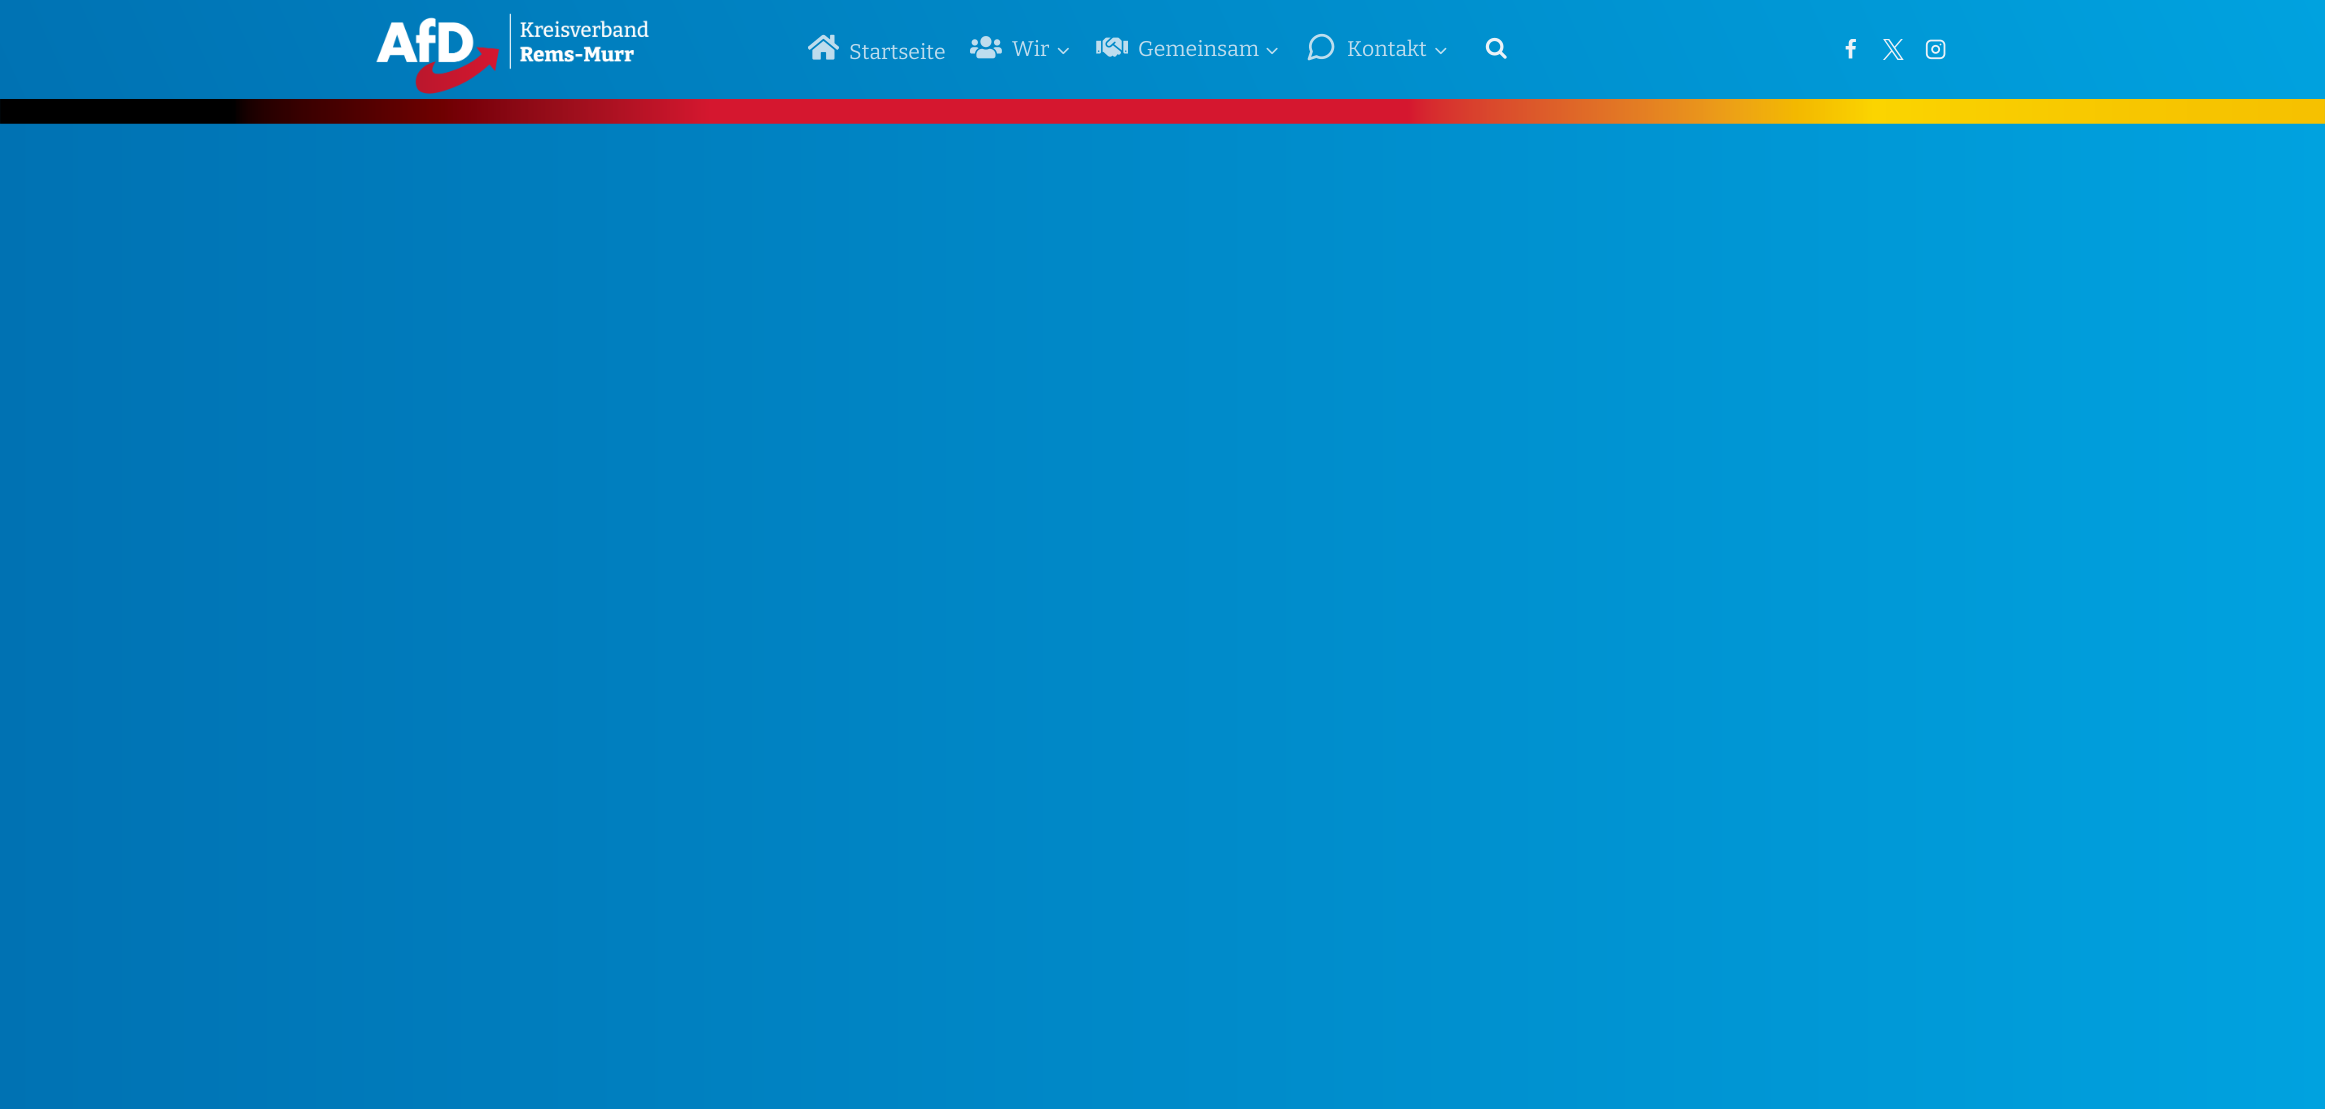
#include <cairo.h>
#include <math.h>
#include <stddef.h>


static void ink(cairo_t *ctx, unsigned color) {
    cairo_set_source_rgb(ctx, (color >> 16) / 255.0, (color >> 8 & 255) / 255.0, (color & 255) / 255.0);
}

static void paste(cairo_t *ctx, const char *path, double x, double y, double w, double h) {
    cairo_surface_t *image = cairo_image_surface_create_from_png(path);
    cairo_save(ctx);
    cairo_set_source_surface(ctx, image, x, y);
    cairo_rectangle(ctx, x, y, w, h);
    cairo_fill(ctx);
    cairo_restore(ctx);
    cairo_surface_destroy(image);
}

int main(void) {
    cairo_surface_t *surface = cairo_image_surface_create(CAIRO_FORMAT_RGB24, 2325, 1109);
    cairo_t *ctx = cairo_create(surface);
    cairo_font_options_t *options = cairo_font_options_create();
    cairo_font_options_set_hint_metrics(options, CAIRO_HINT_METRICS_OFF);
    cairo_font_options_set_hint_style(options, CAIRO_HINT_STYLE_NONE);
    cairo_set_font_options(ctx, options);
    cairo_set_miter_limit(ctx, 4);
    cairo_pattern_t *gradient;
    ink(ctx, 0xFFFFFF);
    cairo_paint(ctx);
    gradient = cairo_pattern_create_linear(2325, 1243, 0, 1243);
    cairo_pattern_add_color_stop_rgba(gradient, 0, 0, 0.635, 0.875, 1);
    cairo_pattern_add_color_stop_rgba(gradient, 1, 0, 0.447, 0.702, 1);
    cairo_set_source(ctx, gradient);
    cairo_pattern_destroy(gradient);
    cairo_rectangle(ctx, 0, 99, 2325, 1010);
    cairo_fill(ctx);
    gradient = cairo_pattern_create_linear(2136, -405, 189, 503);
    cairo_pattern_add_color_stop_rgba(gradient, 0, 0, 0.635, 0.875, 1);
    cairo_pattern_add_color_stop_rgba(gradient, 1, 0, 0.447, 0.702, 1);
    cairo_set_source(ctx, gradient);
    cairo_pattern_destroy(gradient);
    cairo_rectangle(ctx, 0, 0, 2325, 99);
    cairo_fill(ctx);
    paste(ctx, "media/1.png", 376, 13, 274, 81);
    paste(ctx, "media/2.png", 808, 34, 31, 26);
    cairo_select_font_face(ctx, "Bitter", CAIRO_FONT_SLANT_NORMAL, CAIRO_FONT_WEIGHT_NORMAL);
    cairo_set_font_size(ctx, 21.25);
    ink(ctx, 0xBEDCED);
    cairo_move_to(ctx, 849, 59);
    cairo_show_text(ctx, "Startseite");
    paste(ctx, "media/3.png", 970, 36, 32, 23);
    cairo_move_to(ctx, 1012, 56);
    cairo_show_text(ctx, "Wir");
    paste(ctx, "media/4.png", 1057, 47, 12, 8);
    paste(ctx, "media/5.png", 1096, 37, 32, 20);
    cairo_move_to(ctx, 1138, 56);
    cairo_show_text(ctx, "Gemeinsam");
    paste(ctx, "media/6.png", 1266, 47, 12, 8);
    cairo_new_path(ctx);
    cairo_move_to(ctx, 1333, 46.5);
    cairo_curve_to(ctx, 1333, 54.5, 1324, 60.5, 1316.5, 56.5);
    cairo_line_to(ctx, 1309, 59);
    cairo_line_to(ctx, 1311.5, 51.5);
    cairo_curve_to(ctx, 1306, 40.5, 1320.5, 29.5, 1329.5, 38.5);
    cairo_curve_to(ctx, 1331.5, 40.5, 1333, 43.5, 1333, 46.5);
    cairo_close_path(ctx);
    ink(ctx, 0xBEDEEE);
    cairo_set_line_width(ctx, 2.7);
    cairo_set_line_cap(ctx, CAIRO_LINE_CAP_ROUND);
    cairo_set_line_join(ctx, CAIRO_LINE_JOIN_ROUND);
    cairo_stroke(ctx);
    ink(ctx, 0xBEDCED);
    cairo_move_to(ctx, 1347, 56);
    cairo_show_text(ctx, "Kontakt");
    paste(ctx, "media/7.png", 1435, 47, 12, 8);
    paste(ctx, "media/8.png", 1485, 37, 22, 22);
    paste(ctx, "media/9.png", 1845, 39, 11, 20);
    paste(ctx, "media/10.png", 1883, 39, 21, 21);
    paste(ctx, "media/11.png", 1925, 39, 21, 21);
    paste(ctx, "media/12.png", 0, 99, 2325, 25);
    cairo_surface_write_to_png(surface, "image.png");
    cairo_font_options_destroy(options);
    cairo_destroy(ctx);
    cairo_surface_destroy(surface);
    return 0;
}
